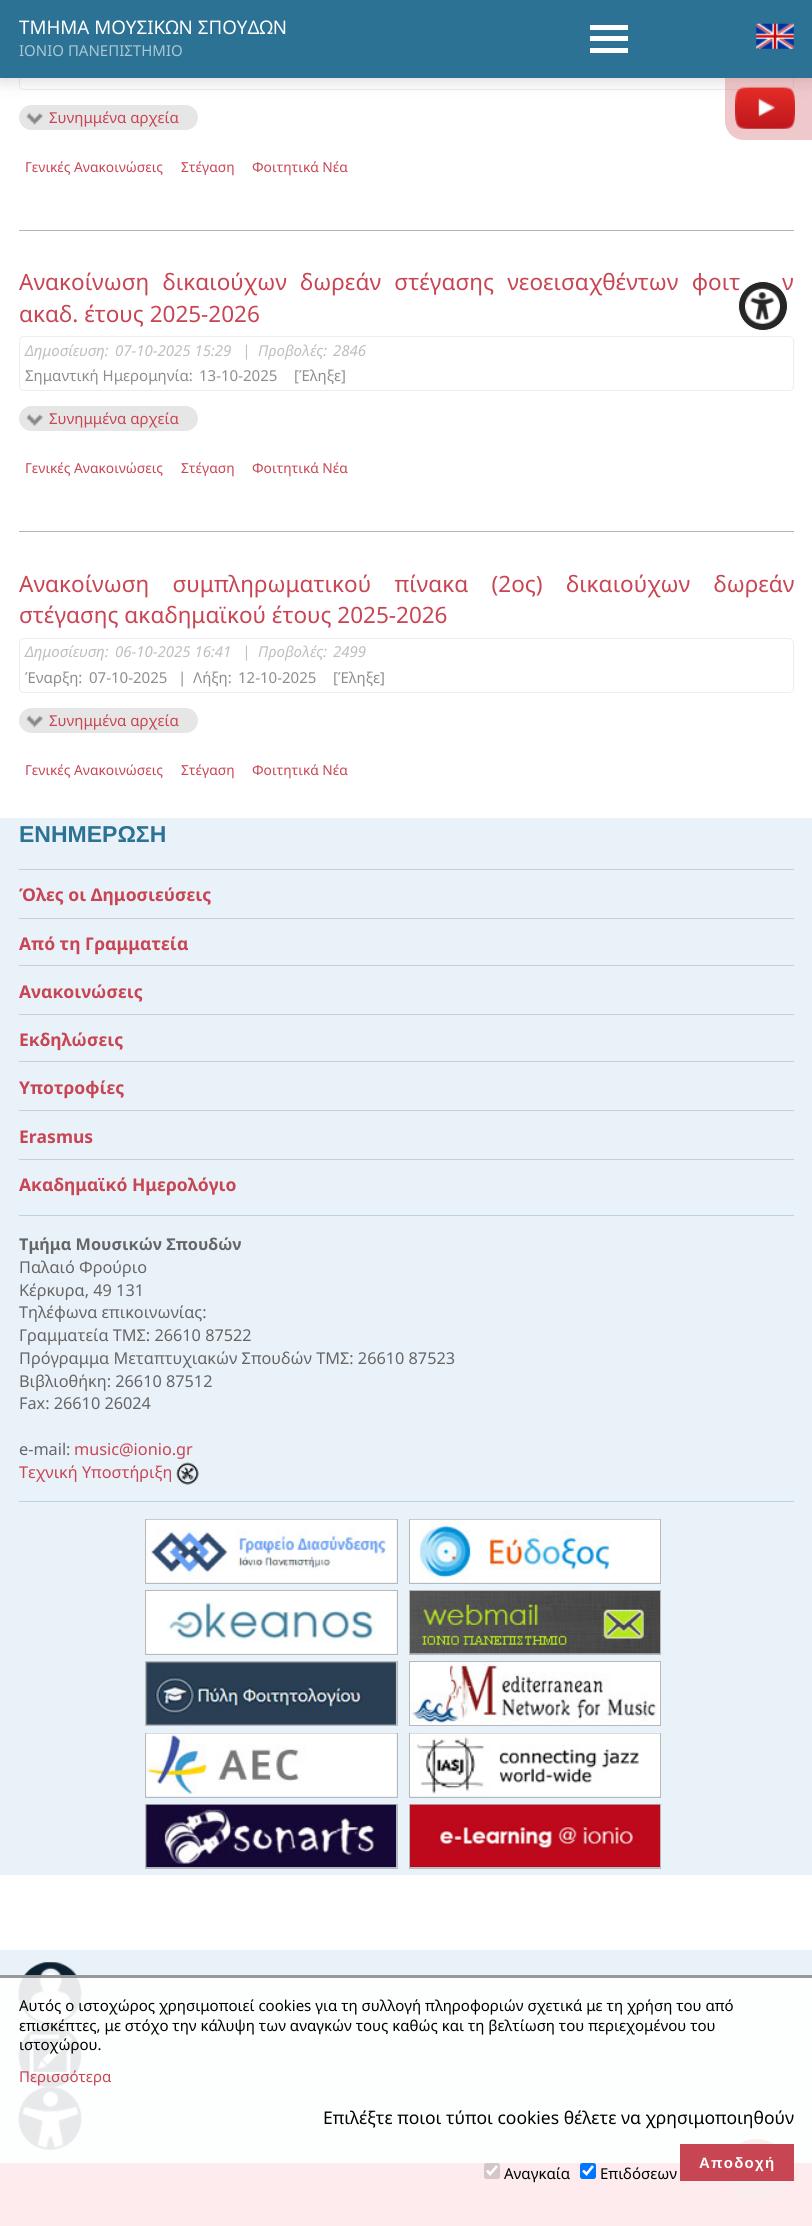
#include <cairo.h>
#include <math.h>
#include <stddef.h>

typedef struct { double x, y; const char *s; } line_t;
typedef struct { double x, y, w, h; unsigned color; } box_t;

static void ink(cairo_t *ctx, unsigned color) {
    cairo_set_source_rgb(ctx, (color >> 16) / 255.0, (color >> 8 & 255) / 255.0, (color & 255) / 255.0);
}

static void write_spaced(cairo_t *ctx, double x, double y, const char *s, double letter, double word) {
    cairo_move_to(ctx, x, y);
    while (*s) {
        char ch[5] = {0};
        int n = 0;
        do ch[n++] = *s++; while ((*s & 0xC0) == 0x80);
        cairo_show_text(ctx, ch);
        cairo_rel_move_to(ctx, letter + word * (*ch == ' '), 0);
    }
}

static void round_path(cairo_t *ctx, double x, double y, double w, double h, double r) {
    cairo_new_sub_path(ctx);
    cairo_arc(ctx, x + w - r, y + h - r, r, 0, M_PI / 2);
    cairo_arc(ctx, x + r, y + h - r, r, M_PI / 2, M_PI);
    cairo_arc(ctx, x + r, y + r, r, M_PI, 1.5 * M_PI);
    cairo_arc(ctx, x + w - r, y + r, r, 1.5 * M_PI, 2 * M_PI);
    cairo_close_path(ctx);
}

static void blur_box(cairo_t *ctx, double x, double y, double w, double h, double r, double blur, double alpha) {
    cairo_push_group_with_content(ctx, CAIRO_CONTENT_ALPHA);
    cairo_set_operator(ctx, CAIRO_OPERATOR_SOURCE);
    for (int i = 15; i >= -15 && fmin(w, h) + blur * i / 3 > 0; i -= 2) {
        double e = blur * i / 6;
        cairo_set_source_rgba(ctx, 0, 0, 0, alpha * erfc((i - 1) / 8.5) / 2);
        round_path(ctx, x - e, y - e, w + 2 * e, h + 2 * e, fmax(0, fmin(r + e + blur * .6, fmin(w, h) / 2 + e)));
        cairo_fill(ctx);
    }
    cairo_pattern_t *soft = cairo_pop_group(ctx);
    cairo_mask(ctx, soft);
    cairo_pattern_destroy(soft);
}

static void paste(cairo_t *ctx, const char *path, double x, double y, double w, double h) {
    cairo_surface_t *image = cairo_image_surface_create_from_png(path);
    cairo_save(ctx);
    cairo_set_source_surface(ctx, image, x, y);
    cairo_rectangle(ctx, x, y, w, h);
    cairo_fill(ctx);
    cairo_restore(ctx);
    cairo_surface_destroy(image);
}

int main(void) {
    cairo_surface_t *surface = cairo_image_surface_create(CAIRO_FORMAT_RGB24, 812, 2226);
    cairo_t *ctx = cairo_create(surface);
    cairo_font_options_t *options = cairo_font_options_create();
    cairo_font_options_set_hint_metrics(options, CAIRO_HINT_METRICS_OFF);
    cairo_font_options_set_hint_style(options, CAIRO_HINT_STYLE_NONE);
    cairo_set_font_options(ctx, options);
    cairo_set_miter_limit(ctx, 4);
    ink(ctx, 0xFFFFFF);
    cairo_paint(ctx);
    round_path(ctx, 19.5, 35.5, 774, 54, 4.5);
    ink(ctx, 0xEDEDED);
    cairo_set_line_width(ctx, 1);
    cairo_stroke(ctx);
    ink(ctx, 0xE6E6E6);
    round_path(ctx, 19, 105, 179, 25, 12.5);
    cairo_fill(ctx);
    ink(ctx, 0x000000);
    blur_box(ctx, 0, 0, 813, 78, 0, 9.5, 0.2);
    ink(ctx, 0x2C7294);
    cairo_rectangle(ctx, 0, 0, 812, 78);
    cairo_fill(ctx);
    cairo_select_font_face(ctx, "Noto Sans", CAIRO_FONT_SLANT_NORMAL, CAIRO_FONT_WEIGHT_NORMAL);
    cairo_set_font_size(ctx, 18.75);
    ink(ctx, 0xFFFFFF);
    cairo_move_to(ctx, 19, 34);
    cairo_show_text(ctx, "ΤΜΗΜΑ ΜΟΥΣΙΚΩΝ ΣΠΟΥΔΩΝ");
    cairo_set_font_size(ctx, 15);
    ink(ctx, 0xABC7D4);
    cairo_move_to(ctx, 19, 56);
    cairo_show_text(ctx, "ΙΟΝΙΟ ΠΑΝΕΠΙΣΤΗΜΙΟ");
    {
        static const box_t items[] = {
            {590, 25, 38, 5, 0xFFFFFF},
            {590, 36, 38, 5, 0xFFFFFF},
            {590, 48, 38, 5, 0xFFFFFF},
        };
        for (size_t i = 0; i < sizeof items / sizeof *items; i++) {
            ink(ctx, items[i].color);
            cairo_rectangle(ctx, items[i].x, items[i].y, items[i].w, items[i].h);
            cairo_fill(ctx);
        }
    }
    paste(ctx, "media/1.png", 756, 23, 38, 26);
    cairo_set_source_rgba(ctx, 0.784, 0.275, 0.314, 0.3);
    cairo_new_path(ctx);
    cairo_move_to(ctx, 725, 78);
    cairo_line_to(ctx, 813, 78);
    cairo_line_to(ctx, 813, 140);
    cairo_line_to(ctx, 744, 140);
    cairo_curve_to(ctx, 733.5, 140, 725, 131.5, 725, 121);
    cairo_close_path(ctx);
    cairo_fill(ctx);
    paste(ctx, "media/2.png", 735, 86, 60, 43);
    paste(ctx, "media/3.png", 26, 112, 17, 13);
    ink(ctx, 0xC84553);
    cairo_move_to(ctx, 49, 123);
    cairo_show_text(ctx, "Συνημμένα αρχεία");
    cairo_set_font_size(ctx, 13.75);
    {
        static const line_t items[] = {
            {25, 172, "Γενικές Ανακοινώσεις"},
            {181, 172, "Στέγαση"},
            {252, 172, "Φοιτητικά Νέα"},
        };
        for (size_t i = 0; i < sizeof items / sizeof *items; i++) {
            cairo_move_to(ctx, items[i].x, items[i].y);
            cairo_show_text(ctx, items[i].s);
        }
    }
    ink(ctx, 0xB3B3B3);
    cairo_rectangle(ctx, 19, 230, 775, 1);
    cairo_fill(ctx);
    cairo_set_font_size(ctx, 22.5);
    ink(ctx, 0xC84553);
    write_spaced(ctx, 19, 290, "Ανακοίνωση δικαιούχων δωρεάν στέγασης νεοεισαχθέντων φοιτ", 0, 7.5);
    write_spaced(ctx, 782, 290, "ν", 0, 7.5);
    cairo_move_to(ctx, 19, 322);
    cairo_show_text(ctx, "ακαδ. έτους 2025-2026");
    round_path(ctx, 19.5, 336.5, 774, 54, 4.5);
    ink(ctx, 0xEDEDED);
    cairo_stroke(ctx);
    cairo_select_font_face(ctx, "Noto Sans", CAIRO_FONT_SLANT_ITALIC, CAIRO_FONT_WEIGHT_NORMAL);
    cairo_set_font_size(ctx, 15);
    ink(ctx, 0xBFBFBF);
    {
        static const line_t items[] = {
            {25, 356, "Δημοσίευση:"},
            {115, 356, "07-10-2025 15:29"},
            {242, 356, "|"},
            {258, 356, "Προβολές:"},
            {333, 356, "2846"},
        };
        for (size_t i = 0; i < sizeof items / sizeof *items; i++) {
            cairo_move_to(ctx, items[i].x, items[i].y);
            cairo_show_text(ctx, items[i].s);
        }
    }
    cairo_select_font_face(ctx, "Noto Sans", CAIRO_FONT_SLANT_NORMAL, CAIRO_FONT_WEIGHT_NORMAL);
    ink(ctx, 0x8E8E8E);
    {
        static const line_t items[] = {
            {25, 381, "Σημαντική Ημερομηνία:"},
            {199, 381, "13-10-2025"},
            {294, 381, "[Έληξε]"},
        };
        for (size_t i = 0; i < sizeof items / sizeof *items; i++) {
            cairo_move_to(ctx, items[i].x, items[i].y);
            cairo_show_text(ctx, items[i].s);
        }
    }
    ink(ctx, 0xE6E6E6);
    round_path(ctx, 19, 406, 179, 25, 12.5);
    cairo_fill(ctx);
    paste(ctx, "media/4.png", 26, 413, 17, 14);
    ink(ctx, 0xC84553);
    cairo_move_to(ctx, 49, 424);
    cairo_show_text(ctx, "Συνημμένα αρχεία");
    cairo_set_font_size(ctx, 13.75);
    {
        static const line_t items[] = {
            {25, 473, "Γενικές Ανακοινώσεις"},
            {181, 473, "Στέγαση"},
            {252, 473, "Φοιτητικά Νέα"},
        };
        for (size_t i = 0; i < sizeof items / sizeof *items; i++) {
            cairo_move_to(ctx, items[i].x, items[i].y);
            cairo_show_text(ctx, items[i].s);
        }
    }
    ink(ctx, 0xB3B3B3);
    cairo_rectangle(ctx, 19, 531, 775, 1);
    cairo_fill(ctx);
    cairo_set_font_size(ctx, 22.5);
    ink(ctx, 0xC84553);
    write_spaced(ctx, 19, 592, "Ανακοίνωση συμπληρωματικού πίνακα (2ος) δικαιούχων δωρεάν", 0, 17.5);
    cairo_move_to(ctx, 19, 623);
    cairo_show_text(ctx, "στέγασης ακαδημαϊκού έτους 2025-2026");
    round_path(ctx, 19.5, 638.5, 774, 54, 4.5);
    ink(ctx, 0xEDEDED);
    cairo_stroke(ctx);
    cairo_select_font_face(ctx, "Noto Sans", CAIRO_FONT_SLANT_ITALIC, CAIRO_FONT_WEIGHT_NORMAL);
    cairo_set_font_size(ctx, 15);
    ink(ctx, 0xBFBFBF);
    {
        static const line_t items[] = {
            {25, 657, "Δημοσίευση:"},
            {115, 657, "06-10-2025 16:41"},
            {242, 657, "|"},
            {258, 657, "Προβολές:"},
            {333, 657, "2499"},
        };
        for (size_t i = 0; i < sizeof items / sizeof *items; i++) {
            cairo_move_to(ctx, items[i].x, items[i].y);
            cairo_show_text(ctx, items[i].s);
        }
    }
    cairo_select_font_face(ctx, "Noto Sans", CAIRO_FONT_SLANT_NORMAL, CAIRO_FONT_WEIGHT_NORMAL);
    ink(ctx, 0x8E8E8E);
    {
        static const line_t items[] = {
            {25, 683, "Έναρξη:"},
            {89, 683, "07-10-2025"},
            {178, 683, "|"},
            {193, 683, "Λήξη:"},
            {238, 683, "12-10-2025"},
            {333, 683, "[Έληξε]"},
        };
        for (size_t i = 0; i < sizeof items / sizeof *items; i++) {
            cairo_move_to(ctx, items[i].x, items[i].y);
            cairo_show_text(ctx, items[i].s);
        }
    }
    ink(ctx, 0xE6E6E6);
    round_path(ctx, 19, 708, 179, 25, 12.5);
    cairo_fill(ctx);
    paste(ctx, "media/5.png", 26, 715, 17, 13);
    ink(ctx, 0xC84553);
    cairo_move_to(ctx, 49, 726);
    cairo_show_text(ctx, "Συνημμένα αρχεία");
    cairo_set_font_size(ctx, 13.75);
    {
        static const line_t items[] = {
            {25, 775, "Γενικές Ανακοινώσεις"},
            {181, 775, "Στέγαση"},
            {252, 775, "Φοιτητικά Νέα"},
        };
        for (size_t i = 0; i < sizeof items / sizeof *items; i++) {
            cairo_move_to(ctx, items[i].x, items[i].y);
            cairo_show_text(ctx, items[i].s);
        }
    }
    ink(ctx, 0xEAF2F9);
    cairo_rectangle(ctx, 0, 818, 812, 1057);
    cairo_fill(ctx);
    cairo_select_font_face(ctx, "Liberation Sans", CAIRO_FONT_SLANT_NORMAL, CAIRO_FONT_WEIGHT_BOLD);
    cairo_set_font_size(ctx, 23);
    ink(ctx, 0x2C7294);
    cairo_move_to(ctx, 19, 842);
    cairo_show_text(ctx, "ΕΝΗΜΕΡΩΣΗ");
    ink(ctx, 0xC7CED4);
    cairo_rectangle(ctx, 19, 869, 775, 1);
    cairo_fill(ctx);
    cairo_select_font_face(ctx, "Noto Sans", CAIRO_FONT_SLANT_NORMAL, CAIRO_FONT_WEIGHT_BOLD);
    cairo_set_font_size(ctx, 17.5);
    ink(ctx, 0xC84553);
    cairo_move_to(ctx, 19, 901);
    cairo_show_text(ctx, "Όλες οι Δημοσιεύσεις");
    ink(ctx, 0xC7CED4);
    cairo_rectangle(ctx, 19, 918, 775, 1);
    cairo_fill(ctx);
    ink(ctx, 0xC84553);
    cairo_move_to(ctx, 19, 950);
    cairo_show_text(ctx, "Από τη Γραμματεία");
    ink(ctx, 0xC7CED4);
    cairo_rectangle(ctx, 19, 965, 775, 1);
    cairo_fill(ctx);
    ink(ctx, 0xC84553);
    cairo_move_to(ctx, 19, 998);
    cairo_show_text(ctx, "Ανακοινώσεις");
    ink(ctx, 0xC7CED4);
    cairo_rectangle(ctx, 19, 1014, 775, 1);
    cairo_fill(ctx);
    ink(ctx, 0xC84553);
    cairo_move_to(ctx, 19, 1046);
    cairo_show_text(ctx, "Εκδηλώσεις");
    ink(ctx, 0xC7CED4);
    cairo_rectangle(ctx, 19, 1061, 775, 1);
    cairo_fill(ctx);
    ink(ctx, 0xC84553);
    cairo_move_to(ctx, 19, 1094);
    cairo_show_text(ctx, "Υποτροφίες");
    ink(ctx, 0xC7CED4);
    cairo_rectangle(ctx, 19, 1110, 775, 1);
    cairo_fill(ctx);
    ink(ctx, 0xC84553);
    cairo_move_to(ctx, 19, 1143);
    cairo_show_text(ctx, "Erasmus");
    ink(ctx, 0xC7CED4);
    cairo_rectangle(ctx, 19, 1159, 775, 1);
    cairo_fill(ctx);
    ink(ctx, 0xC84553);
    cairo_move_to(ctx, 19, 1191);
    cairo_show_text(ctx, "Ακαδημαϊκό Ημερολόγιο");
    ink(ctx, 0xBBD2E0);
    cairo_rectangle(ctx, 19, 1215, 775, 1);
    cairo_fill(ctx);
    cairo_rectangle(ctx, 19, 1501, 775, 1);
    cairo_fill(ctx);
    cairo_set_font_size(ctx, 16.25);
    ink(ctx, 0x666666);
    cairo_move_to(ctx, 19, 1250);
    cairo_show_text(ctx, "Τμήμα Μουσικών Σπουδών");
    cairo_select_font_face(ctx, "Noto Sans", CAIRO_FONT_SLANT_NORMAL, CAIRO_FONT_WEIGHT_NORMAL);
    {
        static const line_t items[] = {
            {19, 1273, "Παλαιό Φρούριο"},
            {19, 1296, "Κέρκυρα, 49 131"},
            {19, 1318, "Τηλέφωνα επικοινωνίας:"},
            {19, 1341, "Γραμματεία ΤΜΣ: 26610 87522"},
            {19, 1364, "Πρόγραμμα Μεταπτυχιακών Σπουδών ΤΜΣ: 26610 87523"},
            {19, 1387, "Βιβλιοθήκη: 26610 87512"},
            {19, 1409, "Fax: 26610 26024"},
            {19, 1455, "e-mail:"},
        };
        for (size_t i = 0; i < sizeof items / sizeof *items; i++) {
            cairo_move_to(ctx, items[i].x, items[i].y);
            cairo_show_text(ctx, items[i].s);
        }
    }
    ink(ctx, 0xC84553);
    cairo_move_to(ctx, 74, 1455);
    cairo_show_text(ctx, "music@ionio.gr");
    cairo_move_to(ctx, 19, 1478);
    cairo_show_text(ctx, "Τεχνική Υποστήριξη");
    paste(ctx, "media/6.png", 176, 1462, 23, 23);
    cairo_rectangle(ctx, 145.5, 1519.5, 252, 64);
    ink(ctx, 0xB9B9B9);
    cairo_stroke(ctx);
    paste(ctx, "media/7.png", 146, 1519, 251, 64);
    cairo_rectangle(ctx, 409.5, 1519.5, 251, 64);
    cairo_stroke(ctx);
    paste(ctx, "media/8.png", 410, 1519, 250, 64);
    cairo_rectangle(ctx, 145.5, 1590.5, 252, 64);
    cairo_stroke(ctx);
    paste(ctx, "media/9.png", 146, 1591, 251, 63);
    cairo_rectangle(ctx, 409.5, 1590.5, 251, 64);
    cairo_stroke(ctx);
    paste(ctx, "media/10.png", 410, 1591, 250, 63);
    cairo_rectangle(ctx, 145.5, 1661.5, 252, 64);
    cairo_stroke(ctx);
    paste(ctx, "media/11.png", 146, 1662, 251, 63);
    cairo_rectangle(ctx, 409.5, 1661.5, 251, 64);
    cairo_stroke(ctx);
    paste(ctx, "media/12.png", 410, 1662, 250, 63);
    cairo_rectangle(ctx, 145.5, 1733.5, 252, 64);
    cairo_stroke(ctx);
    paste(ctx, "media/13.png", 146, 1733, 251, 63);
    cairo_rectangle(ctx, 409.5, 1733.5, 251, 64);
    cairo_stroke(ctx);
    paste(ctx, "media/14.png", 410, 1733, 250, 63);
    cairo_rectangle(ctx, 145.5, 1804.5, 252, 64);
    cairo_stroke(ctx);
    paste(ctx, "media/15.png", 146, 1804, 251, 64);
    cairo_rectangle(ctx, 409.5, 1804.5, 251, 64);
    cairo_stroke(ctx);
    paste(ctx, "media/16.png", 410, 1804, 250, 64);
    ink(ctx, 0x262626);
    cairo_arc(ctx, 763, 306, 24.5, 0, 2 * M_PI);
    cairo_fill_preserve(ctx);
    ink(ctx, 0xFFFFFF);
    cairo_stroke(ctx);
    paste(ctx, "media/17.png", 745, 288, 35, 36);
    ink(ctx, 0xEAF2F9);
    cairo_rectangle(ctx, 0, 1950, 812, 213);
    cairo_fill(ctx);
    paste(ctx, "media/18.png", 18, 1962, 64, 63);
    paste(ctx, "media/19.png", 18, 2024, 64, 64);
    paste(ctx, "media/20.png", 18, 2087, 64, 63);
    ink(ctx, 0xE72F47);
    cairo_rectangle(ctx, 0, 2163, 812, 63);
    cairo_fill(ctx);
    ink(ctx, 0xC84554);
    round_path(ctx, 725, 2139, 63, 62, 31);
    cairo_fill(ctx);
    cairo_set_source_rgba(ctx, 1, 1, 1, 0.9);
    cairo_rectangle(ctx, 0, 1975, 812, 251);
    cairo_fill(ctx);
    cairo_set_source_rgba(ctx, 0.498, 0.498, 0.498, 0.8);
    cairo_rectangle(ctx, 0, 1975, 812, 3);
    cairo_fill(ctx);
    cairo_set_font_size(ctx, 15);
    ink(ctx, 0x000000);
    {
        static const line_t items[] = {
            {19, 2011, "Αυτός ο ιστοχώρος χρησιμοποιεί cookies για τη συλλογή πληροφοριών σχετικά με τη χρήση του από"},
            {19, 2031, "επισκέπτες, με στόχο την κάλυψη των αναγκών τους καθώς και τη βελτίωση του περιεχομένου του"},
            {19, 2050, "ιστοχώρου."},
        };
        for (size_t i = 0; i < sizeof items / sizeof *items; i++) {
            cairo_move_to(ctx, items[i].x, items[i].y);
            cairo_show_text(ctx, items[i].s);
        }
    }
    ink(ctx, 0xC84553);
    cairo_move_to(ctx, 19, 2082);
    cairo_show_text(ctx, "Περισσότερα");
    cairo_set_font_size(ctx, 17.5);
    ink(ctx, 0x000000);
    cairo_move_to(ctx, 323, 2124);
    cairo_show_text(ctx, "Επιλέξτε ποιοι τύποι cookies θέλετε να χρησιμοποιηθούν");
    ink(ctx, 0xC84553);
    cairo_rectangle(ctx, 680, 2144, 114, 37);
    cairo_fill(ctx);
    cairo_select_font_face(ctx, "Liberation Sans", CAIRO_FONT_SLANT_NORMAL, CAIRO_FONT_WEIGHT_BOLD);
    cairo_set_font_size(ctx, 15);
    ink(ctx, 0xFFFFFF);
    write_spaced(ctx, 699, 2168, "Αποδοχή", 1.25, 0);
    ink(ctx, 0xD4C7C9);
    round_path(ctx, 484, 2163, 16, 16, 2.5);
    cairo_fill(ctx);
    cairo_new_path(ctx);
    cairo_move_to(ctx, 487, 2170.5);
    cairo_line_to(ctx, 490, 2174);
    cairo_line_to(ctx, 497, 2166);
    ink(ctx, 0xFFFFFF);
    cairo_set_line_width(ctx, 2.6);
    cairo_stroke(ctx);
    cairo_select_font_face(ctx, "Noto Sans", CAIRO_FONT_SLANT_NORMAL, CAIRO_FONT_WEIGHT_NORMAL);
    ink(ctx, 0x000000);
    cairo_move_to(ctx, 504, 2179);
    cairo_show_text(ctx, "Αναγκαία");
    ink(ctx, 0x0075FF);
    round_path(ctx, 580, 2163, 16, 16, 2.5);
    cairo_fill(ctx);
    cairo_new_path(ctx);
    cairo_move_to(ctx, 583, 2170.5);
    cairo_line_to(ctx, 586.5, 2174);
    cairo_line_to(ctx, 593, 2166);
    ink(ctx, 0xFFFFFF);
    cairo_stroke(ctx);
    ink(ctx, 0x000000);
    cairo_move_to(ctx, 600, 2179);
    cairo_show_text(ctx, "Επιδόσεων");
    cairo_surface_write_to_png(surface, "image.png");
    cairo_font_options_destroy(options);
    cairo_destroy(ctx);
    cairo_surface_destroy(surface);
    return 0;
}
